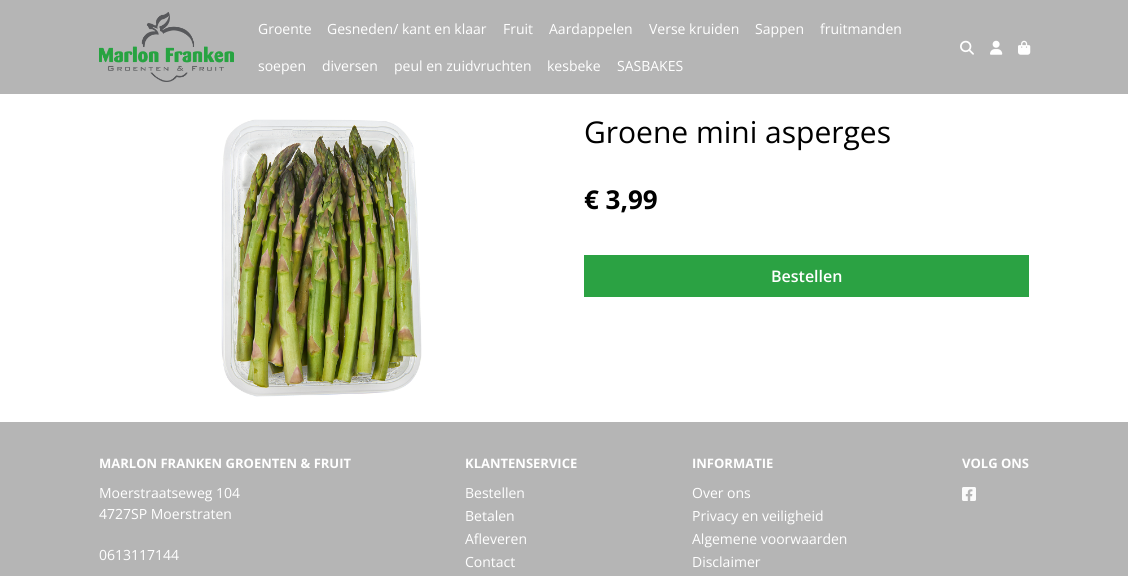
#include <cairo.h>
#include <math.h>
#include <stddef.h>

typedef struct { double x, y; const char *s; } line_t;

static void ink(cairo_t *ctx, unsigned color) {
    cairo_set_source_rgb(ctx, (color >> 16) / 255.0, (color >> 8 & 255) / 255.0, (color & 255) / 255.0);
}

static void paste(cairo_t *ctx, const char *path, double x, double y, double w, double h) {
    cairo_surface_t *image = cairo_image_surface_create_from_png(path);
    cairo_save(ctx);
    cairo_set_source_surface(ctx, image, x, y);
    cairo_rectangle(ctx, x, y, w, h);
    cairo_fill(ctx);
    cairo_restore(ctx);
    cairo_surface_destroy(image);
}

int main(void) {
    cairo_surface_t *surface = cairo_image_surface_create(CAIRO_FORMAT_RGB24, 1128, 576);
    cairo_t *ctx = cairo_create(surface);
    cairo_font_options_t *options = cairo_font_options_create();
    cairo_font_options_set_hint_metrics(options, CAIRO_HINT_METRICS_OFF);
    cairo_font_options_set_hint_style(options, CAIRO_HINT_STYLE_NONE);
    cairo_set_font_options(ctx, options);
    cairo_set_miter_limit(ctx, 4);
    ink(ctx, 0xFFFFFF);
    cairo_paint(ctx);
    ink(ctx, 0xB5B5B5);
    cairo_rectangle(ctx, 0, 0, 1128, 94);
    cairo_fill(ctx);
    paste(ctx, "media/1.png", 99, 12, 135, 70);
    cairo_select_font_face(ctx, "Open Sans", CAIRO_FONT_SLANT_NORMAL, CAIRO_FONT_WEIGHT_NORMAL);
    cairo_set_font_size(ctx, 14);
    ink(ctx, 0xFFFFFF);
    {
        static const line_t items[] = {
            {258, 34, "Groente"},
            {327, 34, "Gesneden/ kant en klaar"},
            {503, 34, "Fruit"},
            {549, 34, "Aardappelen"},
            {649, 34, "Verse kruiden"},
            {755, 34, "Sappen"},
            {820, 34, "fruitmanden"},
            {258, 71, "soepen"},
            {322, 71, "diversen"},
            {394, 71, "peul en zuidvruchten"},
            {547, 71, "kesbeke"},
            {617, 71, "SASBAKES"},
        };
        for (size_t i = 0; i < sizeof items / sizeof *items; i++) {
            cairo_move_to(ctx, items[i].x, items[i].y);
            cairo_show_text(ctx, items[i].s);
        }
    }
    paste(ctx, "media/2.png", 960, 40, 14, 15);
    paste(ctx, "media/3.png", 990, 40, 13, 15);
    paste(ctx, "media/4.png", 1018, 40, 13, 15);
    paste(ctx, "media/5.png", 221, 119, 201, 278);
    cairo_set_font_size(ctx, 30);
    ink(ctx, 0x000000);
    cairo_move_to(ctx, 584, 143);
    cairo_show_text(ctx, "Groene mini asperges");
    cairo_select_font_face(ctx, "Open Sans", CAIRO_FONT_SLANT_NORMAL, CAIRO_FONT_WEIGHT_BOLD);
    cairo_set_font_size(ctx, 26);
    cairo_move_to(ctx, 584, 209);
    cairo_show_text(ctx, "€ 3,99");
    ink(ctx, 0x2BA243);
    cairo_rectangle(ctx, 584, 255, 445, 42);
    cairo_fill(ctx);
    cairo_select_font_face(ctx, "Open Sans SemiBold", CAIRO_FONT_SLANT_NORMAL, CAIRO_FONT_WEIGHT_NORMAL);
    cairo_set_font_size(ctx, 16);
    ink(ctx, 0xFFFFFF);
    cairo_move_to(ctx, 771, 282);
    cairo_show_text(ctx, "Bestellen");
    ink(ctx, 0xB5B5B5);
    cairo_rectangle(ctx, 0, 422, 1128, 154);
    cairo_fill(ctx);
    cairo_select_font_face(ctx, "Open Sans", CAIRO_FONT_SLANT_NORMAL, CAIRO_FONT_WEIGHT_BOLD);
    cairo_set_font_size(ctx, 13);
    ink(ctx, 0xFFFFFF);
    cairo_move_to(ctx, 99, 468);
    cairo_show_text(ctx, "MARLON FRANKEN GROENTEN & FRUIT");
    cairo_select_font_face(ctx, "Open Sans", CAIRO_FONT_SLANT_NORMAL, CAIRO_FONT_WEIGHT_NORMAL);
    cairo_set_font_size(ctx, 14);
    {
        static const line_t items[] = {
            {99, 498, "Moerstraatseweg 104"},
            {99, 519, "4727SP Moerstraten"},
            {99, 560, "0613117144"},
        };
        for (size_t i = 0; i < sizeof items / sizeof *items; i++) {
            cairo_move_to(ctx, items[i].x, items[i].y);
            cairo_show_text(ctx, items[i].s);
        }
    }
    cairo_select_font_face(ctx, "Open Sans", CAIRO_FONT_SLANT_NORMAL, CAIRO_FONT_WEIGHT_BOLD);
    cairo_set_font_size(ctx, 13);
    cairo_move_to(ctx, 465, 468);
    cairo_show_text(ctx, "KLANTENSERVICE");
    cairo_select_font_face(ctx, "Open Sans", CAIRO_FONT_SLANT_NORMAL, CAIRO_FONT_WEIGHT_NORMAL);
    cairo_set_font_size(ctx, 14);
    {
        static const line_t items[] = {
            {465, 498, "Bestellen"},
            {465, 521, "Betalen"},
            {465, 544, "Afleveren"},
            {465, 567, "Contact"},
        };
        for (size_t i = 0; i < sizeof items / sizeof *items; i++) {
            cairo_move_to(ctx, items[i].x, items[i].y);
            cairo_show_text(ctx, items[i].s);
        }
    }
    cairo_select_font_face(ctx, "Open Sans", CAIRO_FONT_SLANT_NORMAL, CAIRO_FONT_WEIGHT_BOLD);
    cairo_set_font_size(ctx, 13);
    cairo_move_to(ctx, 692, 468);
    cairo_show_text(ctx, "INFORMATIE");
    cairo_select_font_face(ctx, "Open Sans", CAIRO_FONT_SLANT_NORMAL, CAIRO_FONT_WEIGHT_NORMAL);
    cairo_set_font_size(ctx, 14);
    {
        static const line_t items[] = {
            {692, 498, "Over ons"},
            {692, 521, "Privacy en veiligheid"},
            {692, 544, "Algemene voorwaarden"},
            {692, 567, "Disclaimer"},
        };
        for (size_t i = 0; i < sizeof items / sizeof *items; i++) {
            cairo_move_to(ctx, items[i].x, items[i].y);
            cairo_show_text(ctx, items[i].s);
        }
    }
    cairo_select_font_face(ctx, "Open Sans", CAIRO_FONT_SLANT_NORMAL, CAIRO_FONT_WEIGHT_BOLD);
    cairo_set_font_size(ctx, 13);
    cairo_move_to(ctx, 962, 468);
    cairo_show_text(ctx, "VOLG ONS");
    paste(ctx, "media/6.png", 962, 487, 14, 14);
    cairo_surface_write_to_png(surface, "image.png");
    cairo_font_options_destroy(options);
    cairo_destroy(ctx);
    cairo_surface_destroy(surface);
    return 0;
}
